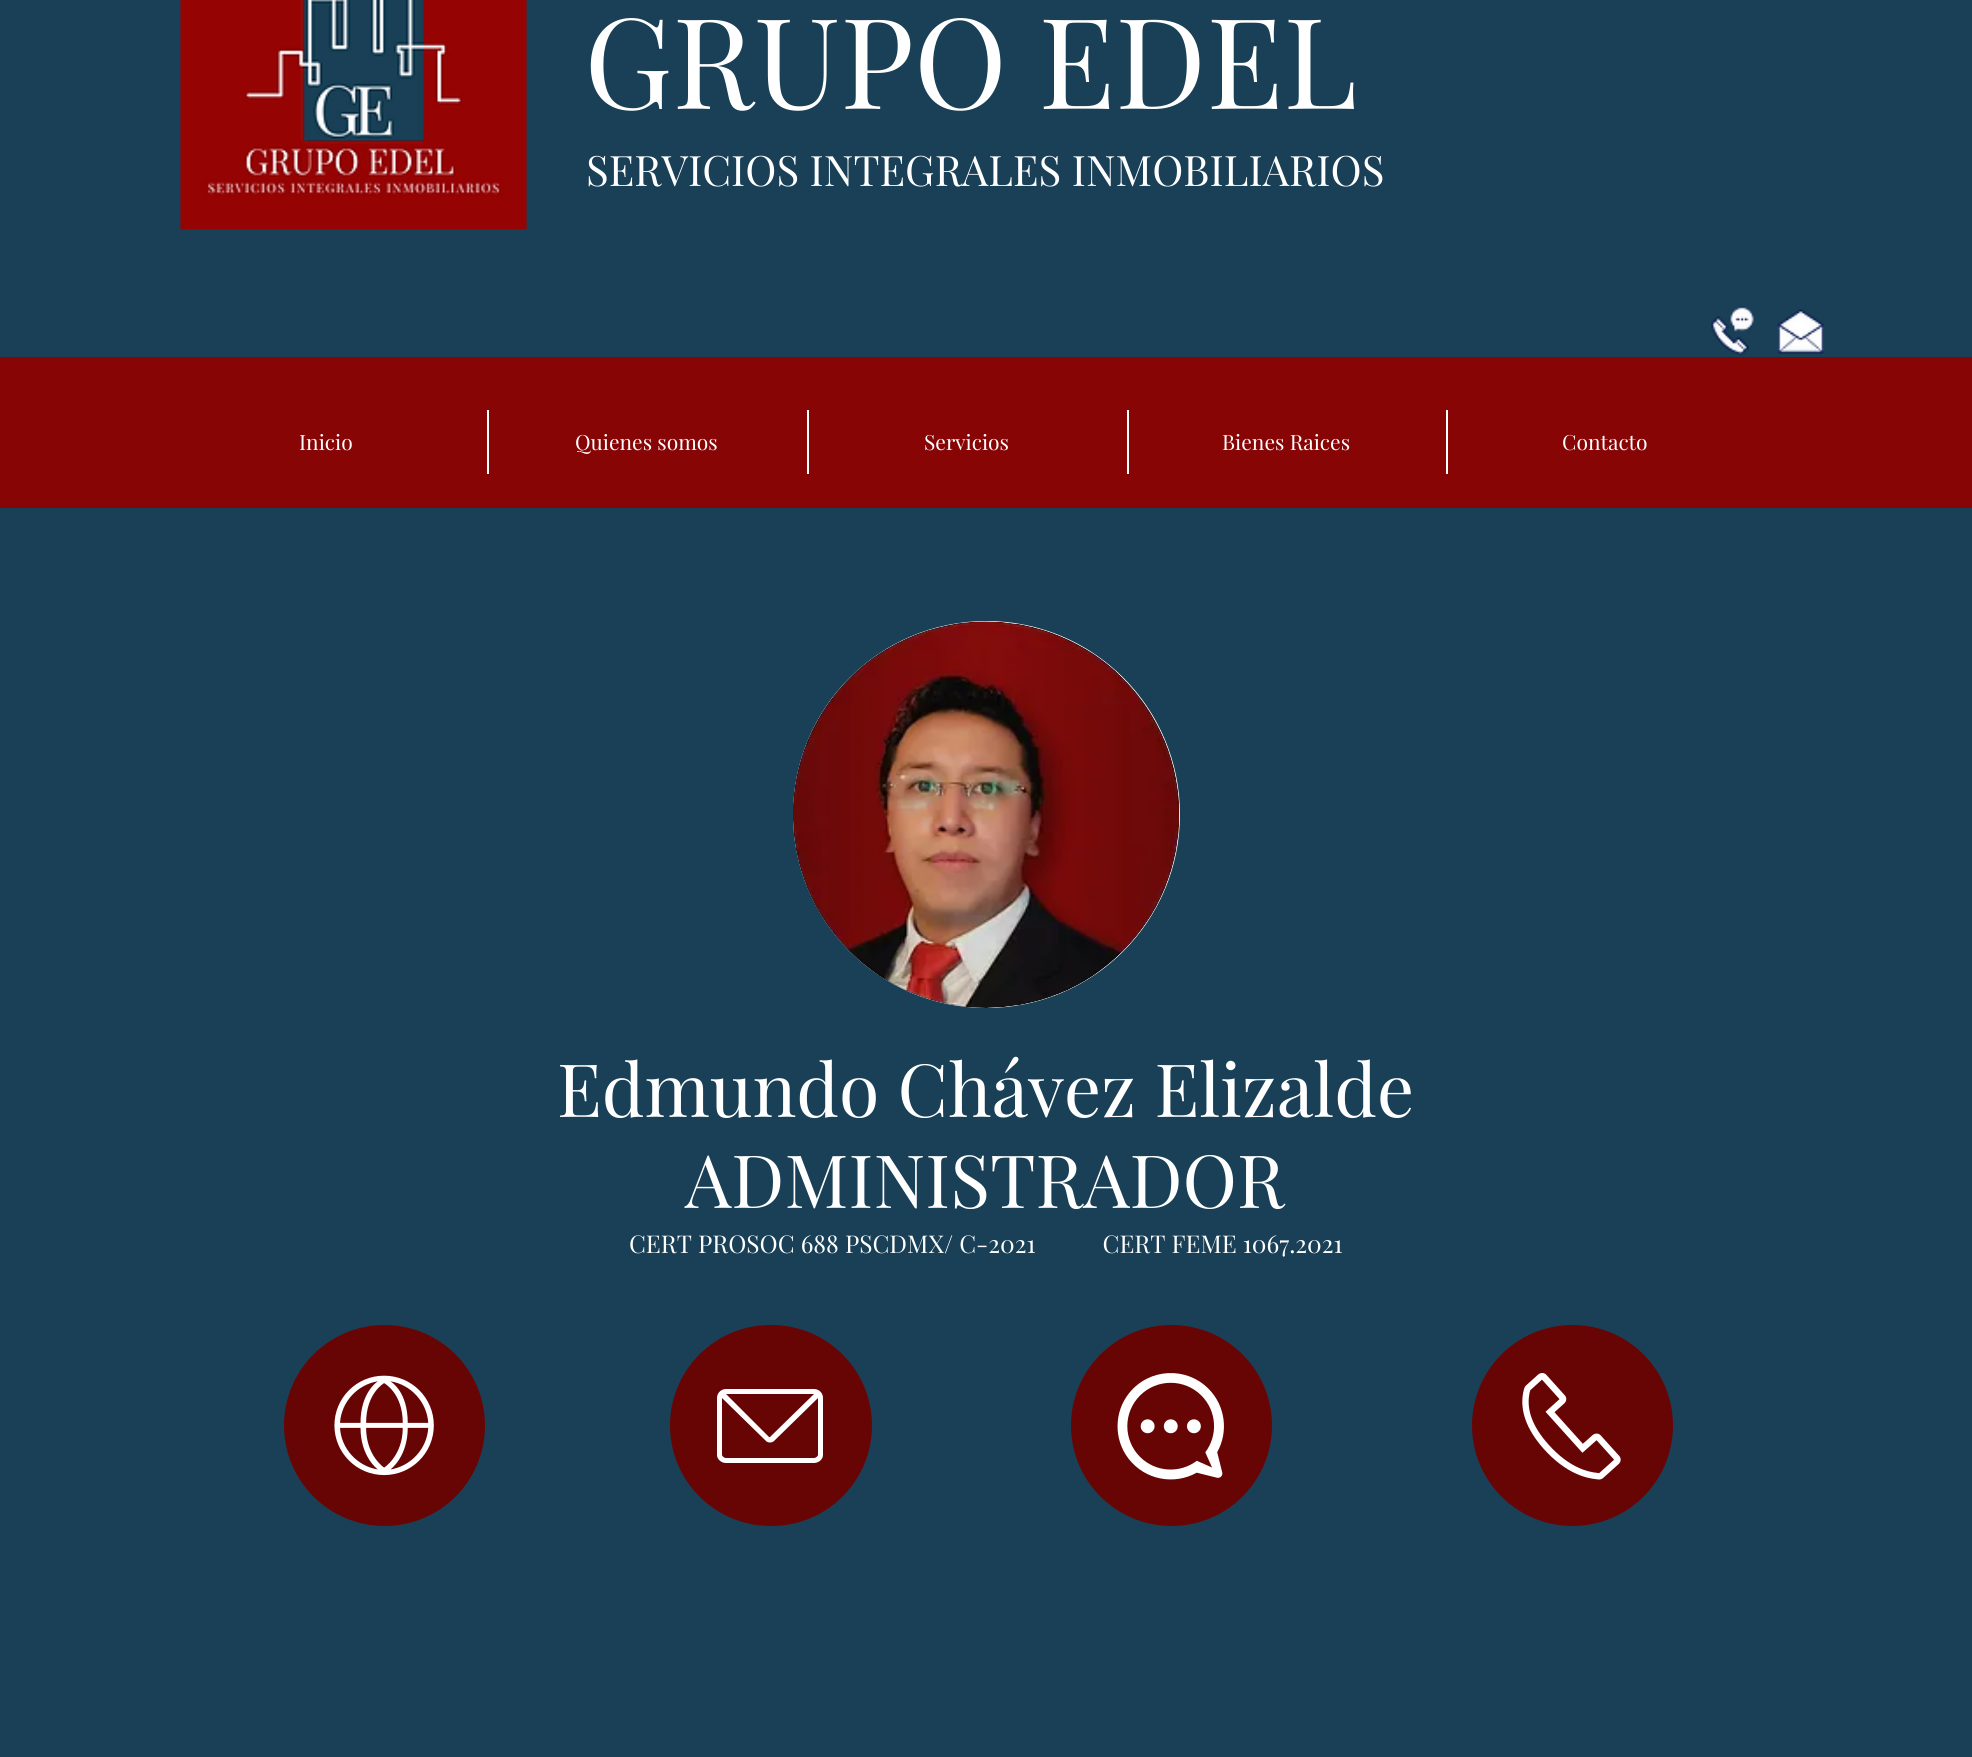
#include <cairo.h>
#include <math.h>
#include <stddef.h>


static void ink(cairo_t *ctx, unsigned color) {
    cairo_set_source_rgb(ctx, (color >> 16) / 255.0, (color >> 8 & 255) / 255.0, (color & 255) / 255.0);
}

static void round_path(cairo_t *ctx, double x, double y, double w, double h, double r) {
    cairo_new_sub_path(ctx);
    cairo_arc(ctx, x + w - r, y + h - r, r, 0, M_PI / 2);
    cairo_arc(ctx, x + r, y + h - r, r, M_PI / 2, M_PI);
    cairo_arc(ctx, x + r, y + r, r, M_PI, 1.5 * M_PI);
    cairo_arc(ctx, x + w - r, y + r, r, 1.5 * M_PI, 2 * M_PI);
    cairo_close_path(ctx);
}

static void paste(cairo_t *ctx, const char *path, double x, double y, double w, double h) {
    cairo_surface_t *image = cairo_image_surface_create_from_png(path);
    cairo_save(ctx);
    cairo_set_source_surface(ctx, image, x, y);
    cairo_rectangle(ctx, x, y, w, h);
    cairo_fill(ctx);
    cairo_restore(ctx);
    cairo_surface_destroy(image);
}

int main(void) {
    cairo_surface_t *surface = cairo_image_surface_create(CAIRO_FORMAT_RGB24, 1972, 1757);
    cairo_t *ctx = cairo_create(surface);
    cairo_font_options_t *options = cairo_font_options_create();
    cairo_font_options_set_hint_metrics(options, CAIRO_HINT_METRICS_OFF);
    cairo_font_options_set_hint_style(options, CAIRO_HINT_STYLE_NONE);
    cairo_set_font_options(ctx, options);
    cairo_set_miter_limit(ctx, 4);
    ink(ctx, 0x194056);
    cairo_paint(ctx);
    paste(ctx, "media/1.png", 180, 0, 347, 230);
    cairo_select_font_face(ctx, "Playfair Display", CAIRO_FONT_SLANT_NORMAL, CAIRO_FONT_WEIGHT_NORMAL);
    cairo_set_font_size(ctx, 126);
    ink(ctx, 0xFFFFFF);
    cairo_move_to(ctx, 584, 109);
    cairo_show_text(ctx, "GRUPO EDEL");
    cairo_set_font_size(ctx, 42);
    cairo_move_to(ctx, 586, 186);
    cairo_show_text(ctx, "SERVICIOS INTEGRALES INMOBILIARIOS");
    paste(ctx, "media/2.png", 1711, 306, 43, 50);
    paste(ctx, "media/3.png", 1777, 309, 47, 45);
    ink(ctx, 0x870505);
    cairo_rectangle(ctx, 0, 357, 1972, 151);
    cairo_fill(ctx);
    cairo_set_font_size(ctx, 21);
    ink(ctx, 0xFFFFFF);
    cairo_move_to(ctx, 299, 450);
    cairo_show_text(ctx, "Inicio");
    cairo_rectangle(ctx, 487, 410, 2, 64);
    cairo_fill(ctx);
    cairo_move_to(ctx, 575, 450);
    cairo_show_text(ctx, "Quienes somos");
    cairo_rectangle(ctx, 807, 410, 2, 64);
    cairo_fill(ctx);
    cairo_move_to(ctx, 924, 450);
    cairo_show_text(ctx, "Servicios");
    cairo_rectangle(ctx, 1127, 410, 2, 64);
    cairo_fill(ctx);
    cairo_move_to(ctx, 1222, 450);
    cairo_show_text(ctx, "Bienes Raices");
    cairo_rectangle(ctx, 1446, 410, 2, 64);
    cairo_fill(ctx);
    cairo_move_to(ctx, 1562, 450);
    cairo_show_text(ctx, "Contacto");
    cairo_new_path(ctx);
    cairo_arc(ctx, 986.5, 814.5, 193.5, 0, 2 * M_PI);
    cairo_fill(ctx);
    paste(ctx, "media/4.png", 793, 621, 387, 387);
    cairo_set_font_size(ctx, 73.5);
    cairo_move_to(ctx, 557, 1117);
    cairo_show_text(ctx, "Edmundo Chávez Elizalde");
    cairo_move_to(ctx, 685, 1208);
    cairo_show_text(ctx, "ADMINISTRADOR");
    cairo_set_font_size(ctx, 24.5);
    cairo_move_to(ctx, 629, 1253);
    cairo_show_text(ctx, "CERT PROSOC 688 PSCDMX/ C-2021           CERT FEME 1067.2021");
    ink(ctx, 0x670505);
    cairo_new_path(ctx);
    cairo_arc(ctx, 384.5, 1425.5, 100.5, 0, 2 * M_PI);
    cairo_fill(ctx);
    paste(ctx, "media/5.png", 334, 1375, 100, 101);
    round_path(ctx, 670, 1325, 202, 201, 100.5);
    cairo_fill(ctx);
    ink(ctx, 0xFFFFFF);
    cairo_new_path(ctx);
    cairo_move_to(ctx, 722, 1398);
    cairo_line_to(ctx, 722, 1455);
    cairo_curve_to(ctx, 722, 1456, 724, 1458, 726, 1458);
    cairo_line_to(ctx, 814, 1458);
    cairo_curve_to(ctx, 816, 1458, 818, 1456, 818, 1455);
    cairo_line_to(ctx, 818, 1398);
    cairo_line_to(ctx, 774, 1441);
    cairo_curve_to(ctx, 772, 1443, 768, 1443, 766, 1441);
    cairo_close_path(ctx);
    cairo_move_to(ctx, 726, 1394);
    cairo_line_to(ctx, 769, 1437);
    cairo_line_to(ctx, 770, 1437);
    cairo_line_to(ctx, 814, 1394);
    cairo_close_path(ctx);
    cairo_move_to(ctx, 814, 1463);
    cairo_line_to(ctx, 726, 1463);
    cairo_curve_to(ctx, 721, 1463, 717, 1459, 717, 1455);
    cairo_line_to(ctx, 717, 1398);
    cairo_curve_to(ctx, 717, 1393, 721, 1389, 726, 1389);
    cairo_line_to(ctx, 814, 1389);
    cairo_curve_to(ctx, 819, 1389, 823, 1393, 823, 1398);
    cairo_line_to(ctx, 823, 1455);
    cairo_curve_to(ctx, 823, 1459, 819, 1463, 814, 1463);
    cairo_close_path(ctx);
    cairo_fill(ctx);
    ink(ctx, 0x670505);
    cairo_arc(ctx, 1171.5, 1425.5, 100.5, 0, 2 * M_PI);
    cairo_fill(ctx);
    paste(ctx, "media/6.png", 1117, 1373, 107, 107);
    cairo_arc(ctx, 1572.5, 1425.5, 100.5, 0, 2 * M_PI);
    cairo_fill(ctx);
    paste(ctx, "media/7.png", 1522, 1373, 99, 107);
    cairo_surface_write_to_png(surface, "image.png");
    cairo_font_options_destroy(options);
    cairo_destroy(ctx);
    cairo_surface_destroy(surface);
    return 0;
}
